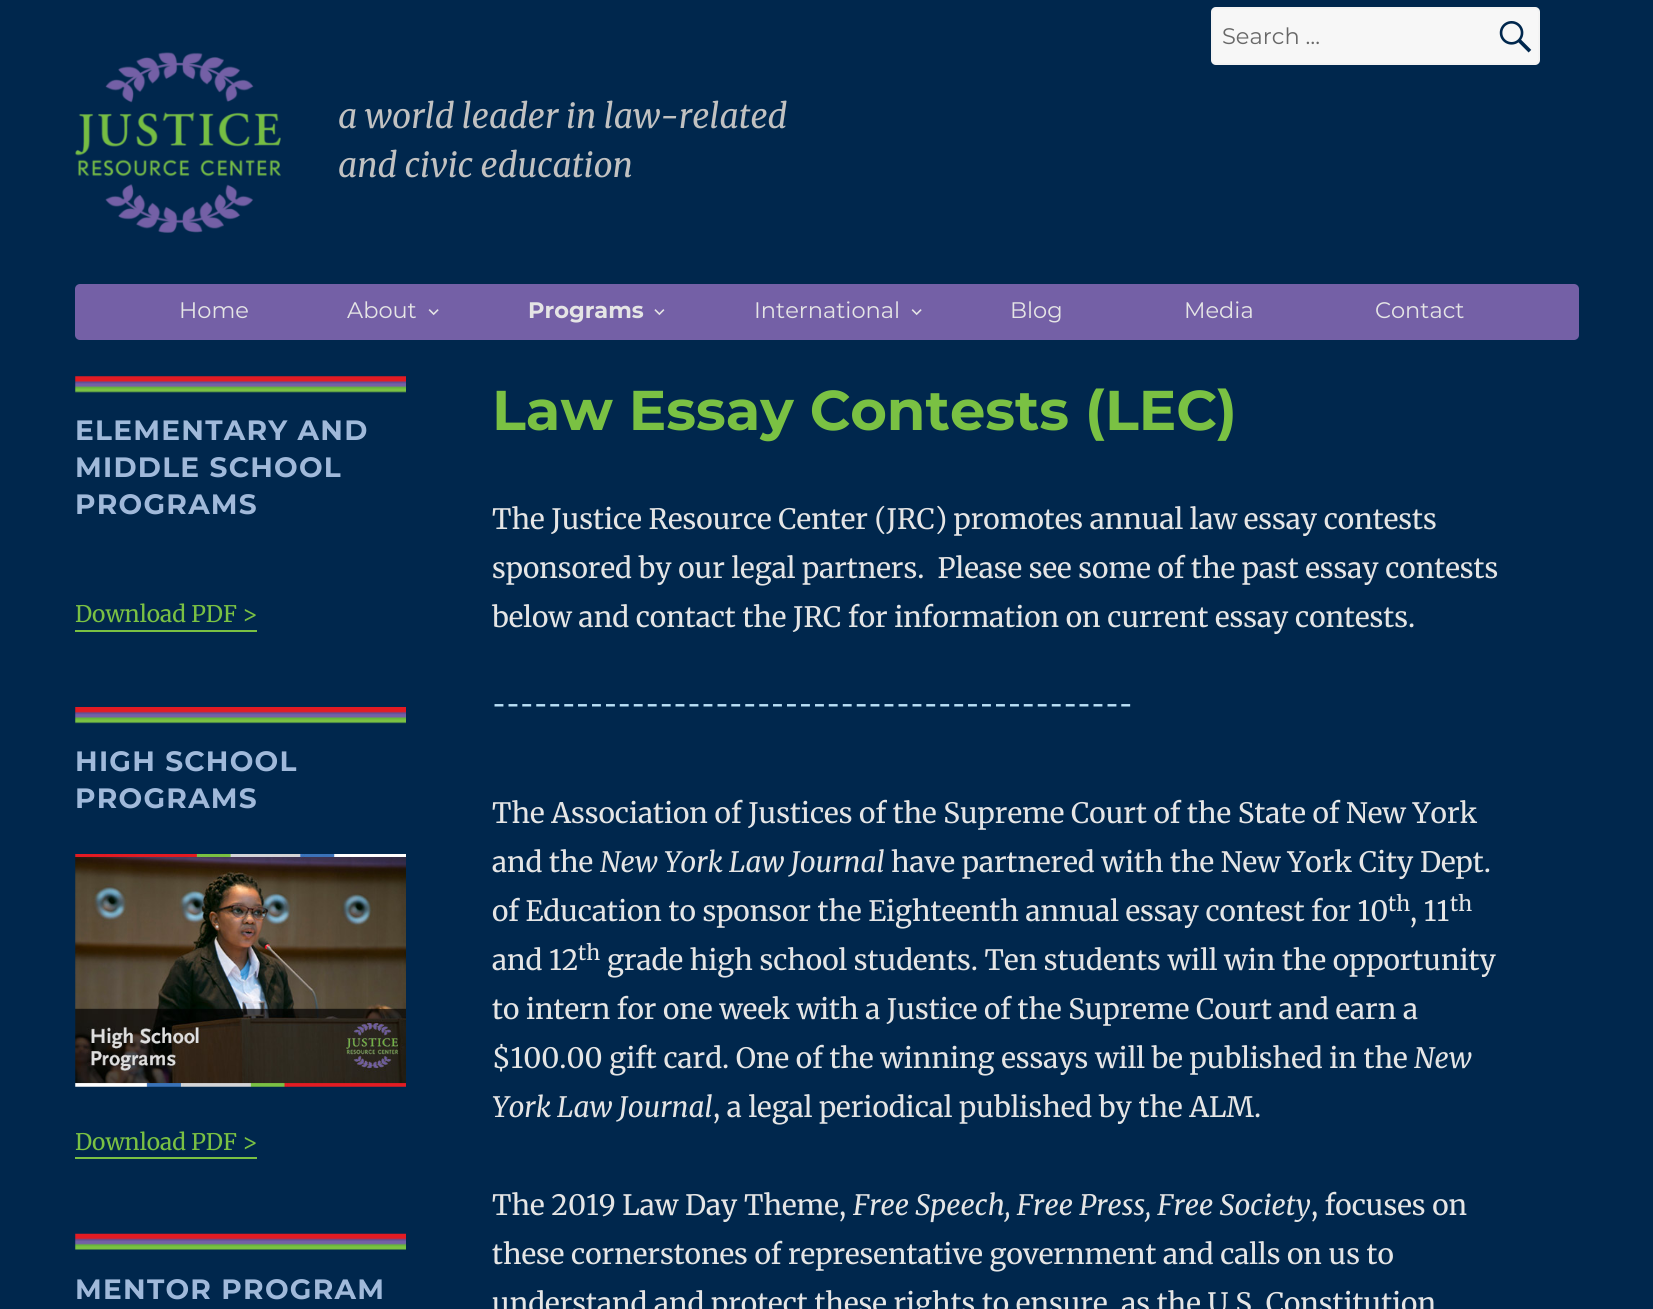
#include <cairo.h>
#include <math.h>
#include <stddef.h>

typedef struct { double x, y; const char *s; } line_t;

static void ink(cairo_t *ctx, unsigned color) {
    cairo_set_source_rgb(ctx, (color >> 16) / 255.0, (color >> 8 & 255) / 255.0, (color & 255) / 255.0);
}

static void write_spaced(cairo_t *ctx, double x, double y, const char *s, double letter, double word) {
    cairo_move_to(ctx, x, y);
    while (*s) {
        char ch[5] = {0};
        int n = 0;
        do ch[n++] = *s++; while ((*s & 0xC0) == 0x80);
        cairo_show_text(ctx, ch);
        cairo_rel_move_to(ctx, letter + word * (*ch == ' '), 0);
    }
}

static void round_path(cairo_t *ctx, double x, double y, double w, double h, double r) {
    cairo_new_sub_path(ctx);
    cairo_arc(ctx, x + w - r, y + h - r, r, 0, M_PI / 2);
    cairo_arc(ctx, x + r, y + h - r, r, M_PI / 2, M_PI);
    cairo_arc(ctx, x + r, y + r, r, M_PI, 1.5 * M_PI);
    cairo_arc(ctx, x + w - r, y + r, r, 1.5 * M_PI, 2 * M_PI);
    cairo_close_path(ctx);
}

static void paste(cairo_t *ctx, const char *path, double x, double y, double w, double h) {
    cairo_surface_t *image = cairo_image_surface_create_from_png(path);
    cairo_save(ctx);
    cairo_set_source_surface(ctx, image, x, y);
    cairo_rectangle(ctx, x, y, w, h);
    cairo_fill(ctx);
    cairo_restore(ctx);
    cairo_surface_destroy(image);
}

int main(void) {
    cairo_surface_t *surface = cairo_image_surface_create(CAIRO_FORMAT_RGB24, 1653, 1309);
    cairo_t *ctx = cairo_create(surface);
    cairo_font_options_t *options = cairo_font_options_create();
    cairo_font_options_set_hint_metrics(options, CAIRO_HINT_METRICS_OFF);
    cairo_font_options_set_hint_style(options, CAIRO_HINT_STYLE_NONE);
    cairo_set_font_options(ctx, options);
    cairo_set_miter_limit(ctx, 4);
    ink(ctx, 0x00274D);
    cairo_paint(ctx);
    ink(ctx, 0xF7F7F7);
    round_path(ctx, 1211, 7, 329, 58, 5);
    cairo_fill(ctx);
    round_path(ctx, 1212, 8, 327, 56, 4);
    cairo_set_source_rgba(ctx, 0.898, 0.898, 0.898, 0.2);
    cairo_stroke(ctx);
    cairo_select_font_face(ctx, "Montserrat", CAIRO_FONT_SLANT_NORMAL, CAIRO_FONT_WEIGHT_NORMAL);
    cairo_set_font_size(ctx, 22.5);
    ink(ctx, 0x686868);
    cairo_move_to(ctx, 1222, 44);
    cairo_show_text(ctx, "Search …");
    paste(ctx, "media/1.png", 1499, 21, 33, 32);
    paste(ctx, "media/2.png", 75, 52, 206, 181);
    cairo_select_font_face(ctx, "Merriweather", CAIRO_FONT_SLANT_ITALIC, CAIRO_FONT_WEIGHT_NORMAL);
    cairo_set_font_size(ctx, 33.6);
    ink(ctx, 0xC1C1C1);
    cairo_move_to(ctx, 338, 128);
    cairo_show_text(ctx, "a world leader in law-related");
    cairo_move_to(ctx, 338, 177);
    cairo_show_text(ctx, "and civic education");
    ink(ctx, 0x7460A6);
    round_path(ctx, 75, 284, 1504, 56, 5);
    cairo_fill(ctx);
    cairo_select_font_face(ctx, "Montserrat", CAIRO_FONT_SLANT_NORMAL, CAIRO_FONT_WEIGHT_NORMAL);
    cairo_set_font_size(ctx, 22.5);
    ink(ctx, 0xE5E5E5);
    cairo_move_to(ctx, 179, 318);
    cairo_show_text(ctx, "Home");
    cairo_move_to(ctx, 347, 318);
    cairo_show_text(ctx, "About");
    paste(ctx, "media/3.png", 428, 309, 11, 7);
    cairo_select_font_face(ctx, "Montserrat", CAIRO_FONT_SLANT_NORMAL, CAIRO_FONT_WEIGHT_BOLD);
    cairo_move_to(ctx, 528, 318);
    cairo_show_text(ctx, "Programs");
    paste(ctx, "media/4.png", 654, 309, 11, 7);
    cairo_select_font_face(ctx, "Montserrat", CAIRO_FONT_SLANT_NORMAL, CAIRO_FONT_WEIGHT_NORMAL);
    cairo_move_to(ctx, 754, 318);
    cairo_show_text(ctx, "International");
    paste(ctx, "media/3.png", 911, 309, 11, 7);
    {
        static const line_t items[] = {
            {1010, 318, "Blog"},
            {1184, 318, "Media"},
            {1375, 318, "Contact"},
        };
        for (size_t i = 0; i < sizeof items / sizeof *items; i++) {
            cairo_move_to(ctx, items[i].x, items[i].y);
            cairo_show_text(ctx, items[i].s);
        }
    }
    paste(ctx, "media/5.png", 75, 376, 331, 17);
    cairo_select_font_face(ctx, "Montserrat", CAIRO_FONT_SLANT_NORMAL, CAIRO_FONT_WEIGHT_BOLD);
    cairo_set_font_size(ctx, 28);
    ink(ctx, 0xA0B9DA);
    {
        static const line_t items[] = {
            {75, 440, "ELEMENTARY AND"},
            {75, 477, "MIDDLE SCHOOL"},
            {75, 514, "PROGRAMS"},
        };
        for (size_t i = 0; i < sizeof items / sizeof *items; i++) {
            write_spaced(ctx, items[i].x, items[i].y, items[i].s, 1.25, 0);
        }
    }
    cairo_select_font_face(ctx, "Merriweather", CAIRO_FONT_SLANT_NORMAL, CAIRO_FONT_WEIGHT_NORMAL);
    cairo_set_font_size(ctx, 22.75);
    ink(ctx, 0x7AC143);
    cairo_move_to(ctx, 75, 622);
    cairo_show_text(ctx, "Download PDF >");
    cairo_new_path(ctx);
    cairo_move_to(ctx, 75, 602);
    cairo_line_to(ctx, 75, 632);
    cairo_line_to(ctx, 257, 632);
    cairo_line_to(ctx, 257, 630);
    cairo_line_to(ctx, 75, 630);
    cairo_close_path(ctx);
    cairo_fill(ctx);
    paste(ctx, "media/6.png", 75, 707, 331, 17);
    cairo_select_font_face(ctx, "Montserrat", CAIRO_FONT_SLANT_NORMAL, CAIRO_FONT_WEIGHT_BOLD);
    cairo_set_font_size(ctx, 28);
    ink(ctx, 0xA0B9DA);
    write_spaced(ctx, 75, 771, "HIGH SCHOOL", 1.25, 0);
    write_spaced(ctx, 75, 808, "PROGRAMS", 1.25, 0);
    ink(ctx, 0x7AC143);
    cairo_new_path(ctx);
    cairo_move_to(ctx, 75, 1129);
    cairo_line_to(ctx, 75, 1159);
    cairo_line_to(ctx, 257, 1159);
    cairo_line_to(ctx, 257, 1157);
    cairo_line_to(ctx, 75, 1157);
    cairo_close_path(ctx);
    cairo_fill(ctx);
    paste(ctx, "media/7.png", 75, 854, 331, 233);
    cairo_select_font_face(ctx, "Merriweather", CAIRO_FONT_SLANT_NORMAL, CAIRO_FONT_WEIGHT_NORMAL);
    cairo_set_font_size(ctx, 22.75);
    cairo_move_to(ctx, 75, 1150);
    cairo_show_text(ctx, "Download PDF >");
    paste(ctx, "media/8.png", 75, 1233, 331, 17);
    cairo_select_font_face(ctx, "Montserrat", CAIRO_FONT_SLANT_NORMAL, CAIRO_FONT_WEIGHT_BOLD);
    cairo_set_font_size(ctx, 28);
    ink(ctx, 0xA0B9DA);
    write_spaced(ctx, 75, 1299, "MENTOR PROGRAM", 1.25, 0);
    cairo_set_font_size(ctx, 56);
    ink(ctx, 0x7AC143);
    cairo_move_to(ctx, 492, 430);
    cairo_show_text(ctx, "Law Essay Contests (LEC)");
    cairo_select_font_face(ctx, "Merriweather", CAIRO_FONT_SLANT_NORMAL, CAIRO_FONT_WEIGHT_NORMAL);
    cairo_set_font_size(ctx, 28);
    ink(ctx, 0xE5E5E5);
    {
        static const line_t items[] = {
            {492, 529, "The Justice Resource Center (JRC) promotes annual law essay contests"},
            {492, 578, "sponsored by our legal partners.  Please see some of the past essay contests"},
            {492, 627, "below and contact the JRC for information on current essay contests."},
        };
        for (size_t i = 0; i < sizeof items / sizeof *items; i++) {
            cairo_move_to(ctx, items[i].x, items[i].y);
            cairo_show_text(ctx, items[i].s);
        }
    }
    cairo_select_font_face(ctx, "Merriweather", CAIRO_FONT_SLANT_NORMAL, CAIRO_FONT_WEIGHT_BOLD);
    ink(ctx, 0xB9E0F7);
    cairo_move_to(ctx, 492, 725);
    cairo_show_text(ctx, "¯¯¯¯¯¯¯¯¯¯¯¯¯¯¯¯¯¯¯¯¯¯¯¯¯¯¯¯¯¯¯¯¯¯¯¯¯¯¯¯¯¯¯¯¯¯");
    cairo_select_font_face(ctx, "Merriweather", CAIRO_FONT_SLANT_NORMAL, CAIRO_FONT_WEIGHT_NORMAL);
    ink(ctx, 0xE5E5E5);
    cairo_move_to(ctx, 492, 823);
    cairo_show_text(ctx, "The Association of Justices of the Supreme Court of the State of New York");
    cairo_move_to(ctx, 492, 872);
    cairo_show_text(ctx, "and the");
    cairo_select_font_face(ctx, "Merriweather", CAIRO_FONT_SLANT_ITALIC, CAIRO_FONT_WEIGHT_NORMAL);
    cairo_move_to(ctx, 600, 872);
    cairo_show_text(ctx, "New York Law Journal");
    cairo_select_font_face(ctx, "Merriweather", CAIRO_FONT_SLANT_NORMAL, CAIRO_FONT_WEIGHT_NORMAL);
    cairo_move_to(ctx, 891, 872);
    cairo_show_text(ctx, "have partnered with the New York City Dept.");
    cairo_move_to(ctx, 492, 921);
    cairo_show_text(ctx, "of Education to sponsor the Eighteenth annual essay contest for 10");
    cairo_set_font_size(ctx, 21);
    cairo_move_to(ctx, 1388, 911);
    cairo_show_text(ctx, "th");
    cairo_set_font_size(ctx, 28);
    cairo_move_to(ctx, 1410, 921);
    cairo_show_text(ctx, ", 11");
    cairo_set_font_size(ctx, 21);
    cairo_move_to(ctx, 1450, 911);
    cairo_show_text(ctx, "th");
    cairo_set_font_size(ctx, 28);
    cairo_move_to(ctx, 492, 970);
    cairo_show_text(ctx, "and 12");
    cairo_set_font_size(ctx, 21);
    cairo_move_to(ctx, 578, 960);
    cairo_show_text(ctx, "th");
    cairo_set_font_size(ctx, 28);
    {
        static const line_t items[] = {
            {607, 970, "grade high school students. Ten students will win the opportunity"},
            {492, 1019, "to intern for one week with a Justice of the Supreme Court and earn a"},
            {492, 1068, "$100.00 gift card. One of the winning essays will be published in the"},
        };
        for (size_t i = 0; i < sizeof items / sizeof *items; i++) {
            cairo_move_to(ctx, items[i].x, items[i].y);
            cairo_show_text(ctx, items[i].s);
        }
    }
    cairo_select_font_face(ctx, "Merriweather", CAIRO_FONT_SLANT_ITALIC, CAIRO_FONT_WEIGHT_NORMAL);
    cairo_move_to(ctx, 1414, 1068);
    cairo_show_text(ctx, "New");
    cairo_move_to(ctx, 492, 1117);
    cairo_show_text(ctx, "York Law Journal");
    cairo_select_font_face(ctx, "Merriweather", CAIRO_FONT_SLANT_NORMAL, CAIRO_FONT_WEIGHT_NORMAL);
    cairo_move_to(ctx, 713, 1117);
    cairo_show_text(ctx, ", a legal periodical published by the ALM.");
    cairo_move_to(ctx, 492, 1215);
    cairo_show_text(ctx, "The 2019 Law Day Theme,");
    cairo_select_font_face(ctx, "Merriweather", CAIRO_FONT_SLANT_ITALIC, CAIRO_FONT_WEIGHT_NORMAL);
    cairo_move_to(ctx, 853, 1215);
    cairo_show_text(ctx, "Free Speech, Free Press, Free Society");
    cairo_select_font_face(ctx, "Merriweather", CAIRO_FONT_SLANT_NORMAL, CAIRO_FONT_WEIGHT_NORMAL);
    {
        static const line_t items[] = {
            {1311, 1215, ", focuses on"},
            {492, 1264, "these cornerstones of representative government and calls on us to"},
            {492, 1313, "understand and protect these rights to ensure, as the U.S. Constitution"},
        };
        for (size_t i = 0; i < sizeof items / sizeof *items; i++) {
            cairo_move_to(ctx, items[i].x, items[i].y);
            cairo_show_text(ctx, items[i].s);
        }
    }
    cairo_surface_write_to_png(surface, "image.png");
    cairo_font_options_destroy(options);
    cairo_destroy(ctx);
    cairo_surface_destroy(surface);
    return 0;
}
